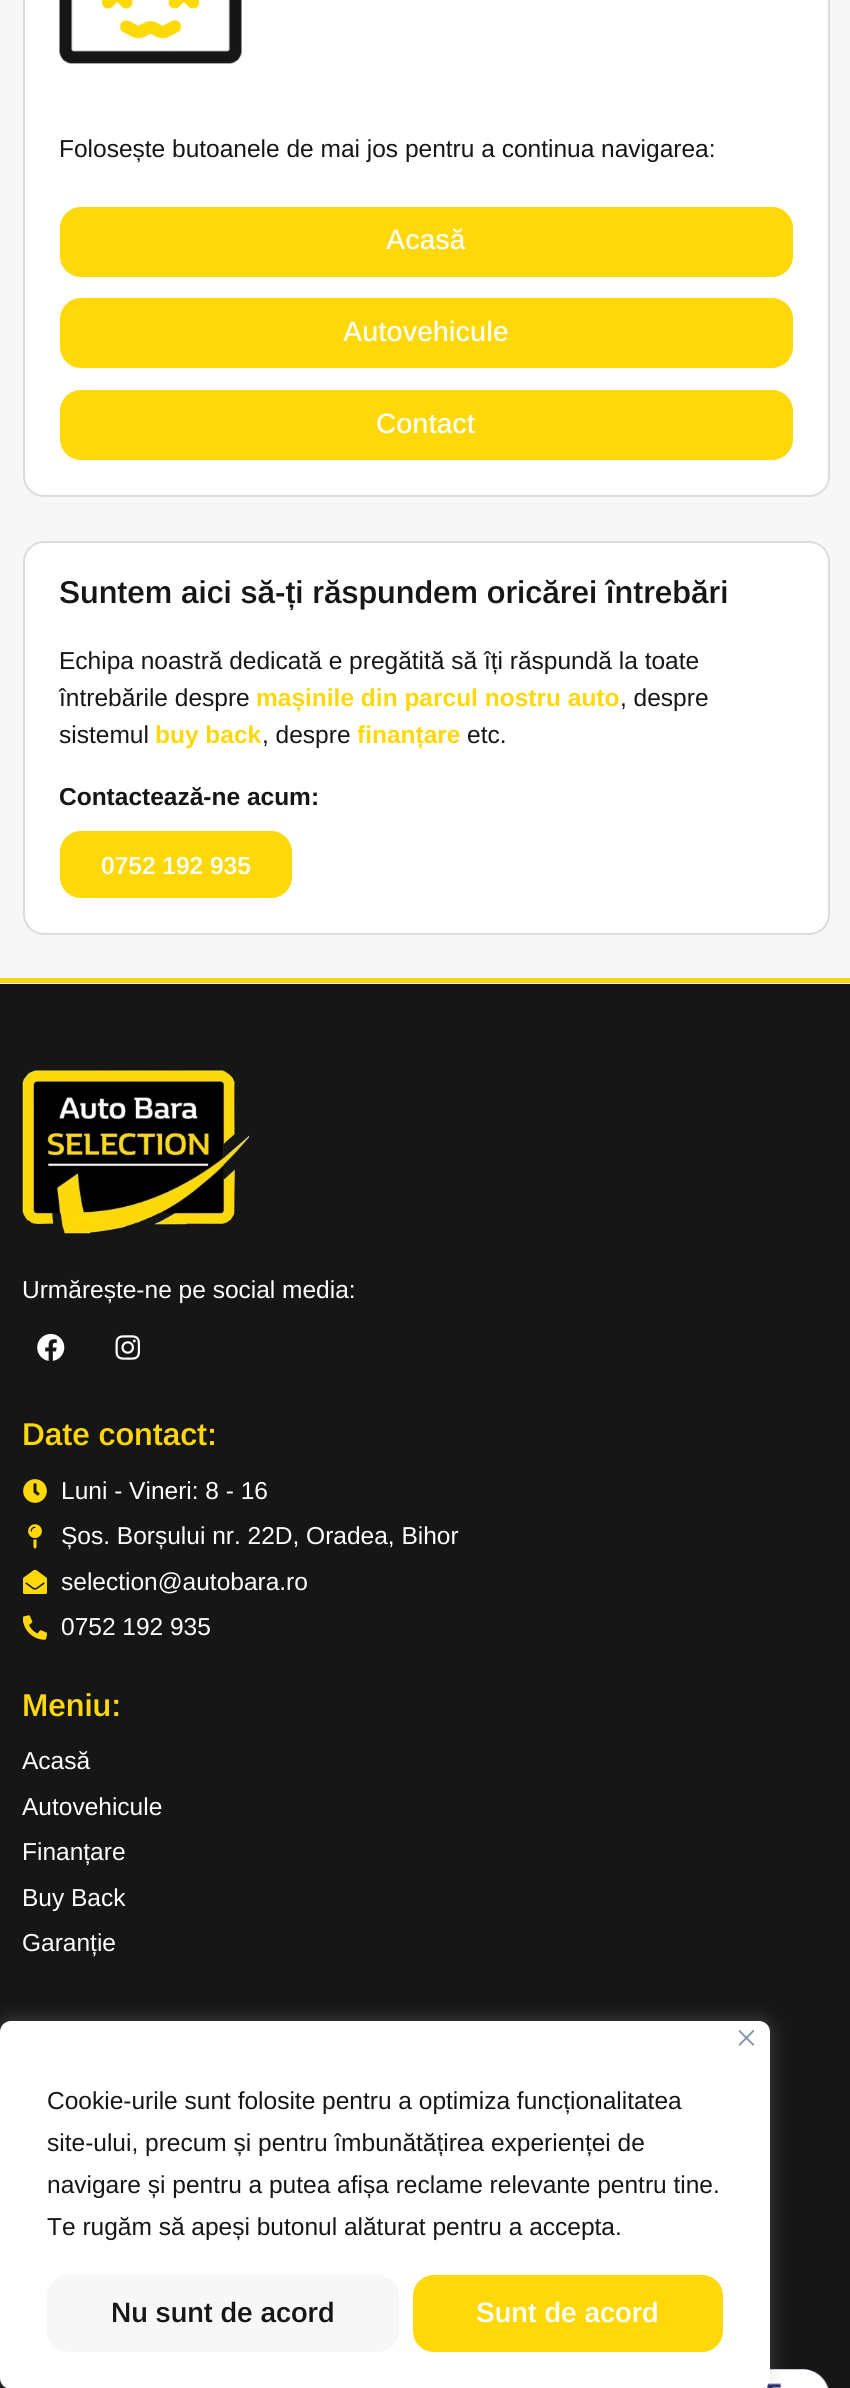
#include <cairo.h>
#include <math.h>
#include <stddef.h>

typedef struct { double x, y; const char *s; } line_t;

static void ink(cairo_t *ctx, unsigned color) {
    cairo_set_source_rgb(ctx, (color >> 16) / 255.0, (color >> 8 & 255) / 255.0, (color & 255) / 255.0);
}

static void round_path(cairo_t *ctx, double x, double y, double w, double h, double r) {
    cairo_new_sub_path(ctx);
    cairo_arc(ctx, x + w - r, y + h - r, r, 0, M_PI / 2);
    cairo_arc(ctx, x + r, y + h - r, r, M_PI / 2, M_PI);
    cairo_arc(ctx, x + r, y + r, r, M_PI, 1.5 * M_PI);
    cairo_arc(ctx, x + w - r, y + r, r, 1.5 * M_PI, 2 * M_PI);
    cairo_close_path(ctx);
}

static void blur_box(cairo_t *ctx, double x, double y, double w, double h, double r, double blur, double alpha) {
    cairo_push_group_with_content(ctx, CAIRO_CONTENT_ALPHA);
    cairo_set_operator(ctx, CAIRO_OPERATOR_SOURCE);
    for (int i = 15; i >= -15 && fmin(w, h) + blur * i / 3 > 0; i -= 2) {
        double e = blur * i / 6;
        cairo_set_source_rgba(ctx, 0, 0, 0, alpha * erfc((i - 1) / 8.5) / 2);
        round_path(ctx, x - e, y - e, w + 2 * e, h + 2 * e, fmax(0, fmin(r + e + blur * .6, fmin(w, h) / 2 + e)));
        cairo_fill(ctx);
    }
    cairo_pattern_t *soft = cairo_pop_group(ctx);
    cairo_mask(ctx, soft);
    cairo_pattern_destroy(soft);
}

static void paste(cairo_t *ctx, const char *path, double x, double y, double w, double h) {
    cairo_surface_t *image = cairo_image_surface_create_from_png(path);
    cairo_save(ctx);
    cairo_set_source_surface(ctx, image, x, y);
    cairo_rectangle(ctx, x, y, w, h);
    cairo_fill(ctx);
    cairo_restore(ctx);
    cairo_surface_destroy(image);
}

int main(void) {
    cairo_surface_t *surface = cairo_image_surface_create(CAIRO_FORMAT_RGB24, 850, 2388);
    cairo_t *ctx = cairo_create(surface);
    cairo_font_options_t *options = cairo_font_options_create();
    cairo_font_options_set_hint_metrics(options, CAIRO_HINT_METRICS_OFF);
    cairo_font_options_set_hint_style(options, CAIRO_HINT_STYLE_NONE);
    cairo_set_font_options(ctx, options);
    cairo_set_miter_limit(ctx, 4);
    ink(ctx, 0xF7F7F7);
    cairo_paint(ctx);
    ink(ctx, 0xFFFFFF);
    round_path(ctx, 23, -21, 807, 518, 21);
    cairo_fill(ctx);
    round_path(ctx, 24, -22, 805, 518, 20);
    cairo_set_source_rgba(ctx, 0, 0, 0, 0.14);
    cairo_stroke(ctx);
    paste(ctx, "media/1.png", 59, 0, 183, 64);
    cairo_select_font_face(ctx, "Arimo", CAIRO_FONT_SLANT_NORMAL, CAIRO_FONT_WEIGHT_NORMAL);
    cairo_set_font_size(ctx, 24.5);
    ink(ctx, 0x161616);
    cairo_move_to(ctx, 59, 157);
    cairo_show_text(ctx, "Folosește butoanele de mai jos pentru a continua navigarea:");
    ink(ctx, 0xFED809);
    round_path(ctx, 60, 207, 733, 70, 21);
    cairo_fill(ctx);
    cairo_select_font_face(ctx, "Arimo Medium", CAIRO_FONT_SLANT_NORMAL, CAIRO_FONT_WEIGHT_NORMAL);
    cairo_set_font_size(ctx, 28);
    ink(ctx, 0xFFFFFF);
    cairo_move_to(ctx, 386, 249);
    cairo_show_text(ctx, "Acasă");
    ink(ctx, 0xFED809);
    round_path(ctx, 60, 298, 733, 70, 21);
    cairo_fill(ctx);
    ink(ctx, 0xFFFFFF);
    cairo_move_to(ctx, 343, 341);
    cairo_show_text(ctx, "Autovehicule");
    ink(ctx, 0xFED809);
    round_path(ctx, 60, 390, 733, 70, 21);
    cairo_fill(ctx);
    ink(ctx, 0xFFFFFF);
    cairo_move_to(ctx, 376, 433);
    cairo_show_text(ctx, "Contact");
    round_path(ctx, 23, 541, 807, 394, 21);
    cairo_fill(ctx);
    round_path(ctx, 24, 542, 805, 392, 20);
    cairo_set_source_rgba(ctx, 0, 0, 0, 0.14);
    cairo_stroke(ctx);
    cairo_select_font_face(ctx, "Arimo SemiBold", CAIRO_FONT_SLANT_NORMAL, CAIRO_FONT_WEIGHT_NORMAL);
    cairo_set_font_size(ctx, 31.5);
    ink(ctx, 0x161616);
    cairo_move_to(ctx, 59, 603);
    cairo_show_text(ctx, "Suntem aici să-ți răspundem oricărei întrebări");
    cairo_select_font_face(ctx, "Arimo", CAIRO_FONT_SLANT_NORMAL, CAIRO_FONT_WEIGHT_NORMAL);
    cairo_set_font_size(ctx, 24.5);
    cairo_move_to(ctx, 59, 669);
    cairo_show_text(ctx, "Echipa noastră dedicată e pregătită să îți răspundă la toate");
    cairo_move_to(ctx, 59, 706);
    cairo_show_text(ctx, "întrebările despre");
    cairo_select_font_face(ctx, "Arimo", CAIRO_FONT_SLANT_NORMAL, CAIRO_FONT_WEIGHT_BOLD);
    ink(ctx, 0xFED809);
    cairo_move_to(ctx, 256, 706);
    cairo_show_text(ctx, "mașinile din parcul nostru auto");
    cairo_select_font_face(ctx, "Arimo", CAIRO_FONT_SLANT_NORMAL, CAIRO_FONT_WEIGHT_NORMAL);
    ink(ctx, 0x161616);
    cairo_move_to(ctx, 620, 706);
    cairo_show_text(ctx, ", despre");
    cairo_move_to(ctx, 59, 743);
    cairo_show_text(ctx, "sistemul");
    cairo_select_font_face(ctx, "Arimo", CAIRO_FONT_SLANT_NORMAL, CAIRO_FONT_WEIGHT_BOLD);
    ink(ctx, 0xFED809);
    cairo_move_to(ctx, 155, 743);
    cairo_show_text(ctx, "buy back");
    cairo_select_font_face(ctx, "Arimo", CAIRO_FONT_SLANT_NORMAL, CAIRO_FONT_WEIGHT_NORMAL);
    ink(ctx, 0x161616);
    cairo_move_to(ctx, 262, 743);
    cairo_show_text(ctx, ", despre");
    cairo_select_font_face(ctx, "Arimo", CAIRO_FONT_SLANT_NORMAL, CAIRO_FONT_WEIGHT_BOLD);
    ink(ctx, 0xFED809);
    cairo_move_to(ctx, 357, 743);
    cairo_show_text(ctx, "finanțare");
    cairo_select_font_face(ctx, "Arimo", CAIRO_FONT_SLANT_NORMAL, CAIRO_FONT_WEIGHT_NORMAL);
    ink(ctx, 0x161616);
    cairo_move_to(ctx, 467, 743);
    cairo_show_text(ctx, "etc.");
    cairo_select_font_face(ctx, "Arimo", CAIRO_FONT_SLANT_NORMAL, CAIRO_FONT_WEIGHT_BOLD);
    cairo_move_to(ctx, 59, 805);
    cairo_show_text(ctx, "Contactează-ne acum:");
    ink(ctx, 0xFED809);
    round_path(ctx, 60, 831, 232, 67, 21);
    cairo_fill(ctx);
    cairo_select_font_face(ctx, "Arimo SemiBold", CAIRO_FONT_SLANT_NORMAL, CAIRO_FONT_WEIGHT_NORMAL);
    ink(ctx, 0xFFFFFF);
    cairo_move_to(ctx, 101, 874);
    cairo_show_text(ctx, "0752 192 935");
    ink(ctx, 0x161616);
    cairo_rectangle(ctx, 0, 984, 850, 1404);
    cairo_fill(ctx);
    ink(ctx, 0xFED809);
    cairo_rectangle(ctx, 0, 978, 850, 5);
    cairo_fill(ctx);
    paste(ctx, "media/2.png", 22, 1070, 228, 164);
    cairo_select_font_face(ctx, "Arimo", CAIRO_FONT_SLANT_NORMAL, CAIRO_FONT_WEIGHT_NORMAL);
    ink(ctx, 0xFFFFFF);
    cairo_move_to(ctx, 22, 1298);
    cairo_show_text(ctx, "Urmărește-ne pe social media:");
    paste(ctx, "media/3.png", 37, 1334, 28, 27);
    paste(ctx, "media/4.png", 115, 1335, 25, 25);
    cairo_select_font_face(ctx, "Arimo SemiBold", CAIRO_FONT_SLANT_NORMAL, CAIRO_FONT_WEIGHT_NORMAL);
    cairo_set_font_size(ctx, 31.5);
    ink(ctx, 0xFED809);
    cairo_move_to(ctx, 22, 1445);
    cairo_show_text(ctx, "Date contact:");
    paste(ctx, "media/5.png", 23, 1479, 24, 24);
    cairo_select_font_face(ctx, "Arimo", CAIRO_FONT_SLANT_NORMAL, CAIRO_FONT_WEIGHT_NORMAL);
    cairo_set_font_size(ctx, 24.5);
    ink(ctx, 0xFFFFFF);
    cairo_move_to(ctx, 61, 1499);
    cairo_show_text(ctx, "Luni - Vineri: 8 - 16");
    paste(ctx, "media/6.png", 28, 1524, 14, 25);
    cairo_move_to(ctx, 61, 1544);
    cairo_show_text(ctx, "Șos. Borșului nr. 22D, Oradea, Bihor");
    paste(ctx, "media/7.png", 23, 1570, 24, 24);
    cairo_move_to(ctx, 61, 1590);
    cairo_show_text(ctx, "selection@autobara.ro");
    paste(ctx, "media/8.png", 23, 1615, 24, 25);
    cairo_move_to(ctx, 61, 1635);
    cairo_show_text(ctx, "0752 192 935");
    cairo_select_font_face(ctx, "Arimo SemiBold", CAIRO_FONT_SLANT_NORMAL, CAIRO_FONT_WEIGHT_NORMAL);
    cairo_set_font_size(ctx, 31.5);
    ink(ctx, 0xFED809);
    cairo_move_to(ctx, 22, 1716);
    cairo_show_text(ctx, "Meniu:");
    cairo_select_font_face(ctx, "Arimo", CAIRO_FONT_SLANT_NORMAL, CAIRO_FONT_WEIGHT_NORMAL);
    cairo_set_font_size(ctx, 24.5);
    ink(ctx, 0xFFFFFF);
    {
        static const line_t items[] = {
            {22, 1769, "Acasă"},
            {22, 1815, "Autovehicule"},
            {22, 1860, "Finanțare"},
            {22, 1906, "Buy Back"},
            {22, 1951, "Garanție"},
        };
        for (size_t i = 0; i < sizeof items / sizeof *items; i++) {
            cairo_move_to(ctx, items[i].x, items[i].y);
            cairo_show_text(ctx, items[i].s);
        }
    }
    paste(ctx, "media/9.png", 763, 2369, 66, 19);
    ink(ctx, 0xACABAB);
    blur_box(ctx, 0, 2020, 770, 367, 11, 9, 0.3);
    ink(ctx, 0xFFFFFF);
    round_path(ctx, 1, 2022, 768, 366, 10);
    cairo_fill_preserve(ctx);
    cairo_stroke(ctx);
    paste(ctx, "media/10.png", 739, 2030, 15, 16);
    ink(ctx, 0x161616);
    {
        static const line_t items[] = {
            {47, 2109, "Cookie-urile sunt folosite pentru a optimiza funcționalitatea"},
            {47, 2151, "site-ului, precum și pentru îmbunătățirea experienței de"},
            {47, 2193, "navigare și pentru a putea afișa reclame relevante pentru tine."},
            {47, 2235, "Te rugăm să apeși butonul alăturat pentru a accepta."},
        };
        for (size_t i = 0; i < sizeof items / sizeof *items; i++) {
            cairo_move_to(ctx, items[i].x, items[i].y);
            cairo_show_text(ctx, items[i].s);
        }
    }
    ink(ctx, 0xF7F7F7);
    round_path(ctx, 47, 2275, 352, 77, 21);
    cairo_fill(ctx);
    cairo_select_font_face(ctx, "Arimo SemiBold", CAIRO_FONT_SLANT_NORMAL, CAIRO_FONT_WEIGHT_NORMAL);
    cairo_set_font_size(ctx, 28);
    ink(ctx, 0x161616);
    cairo_move_to(ctx, 111, 2322);
    cairo_show_text(ctx, "Nu sunt de acord");
    ink(ctx, 0xFED809);
    round_path(ctx, 415, 2277, 306, 73, 19);
    cairo_fill_preserve(ctx);
    cairo_set_line_width(ctx, 4);
    cairo_stroke(ctx);
    ink(ctx, 0xFFFFFF);
    cairo_move_to(ctx, 476, 2322);
    cairo_show_text(ctx, "Sunt de acord");
    cairo_surface_write_to_png(surface, "image.png");
    cairo_font_options_destroy(options);
    cairo_destroy(ctx);
    cairo_surface_destroy(surface);
    return 0;
}
